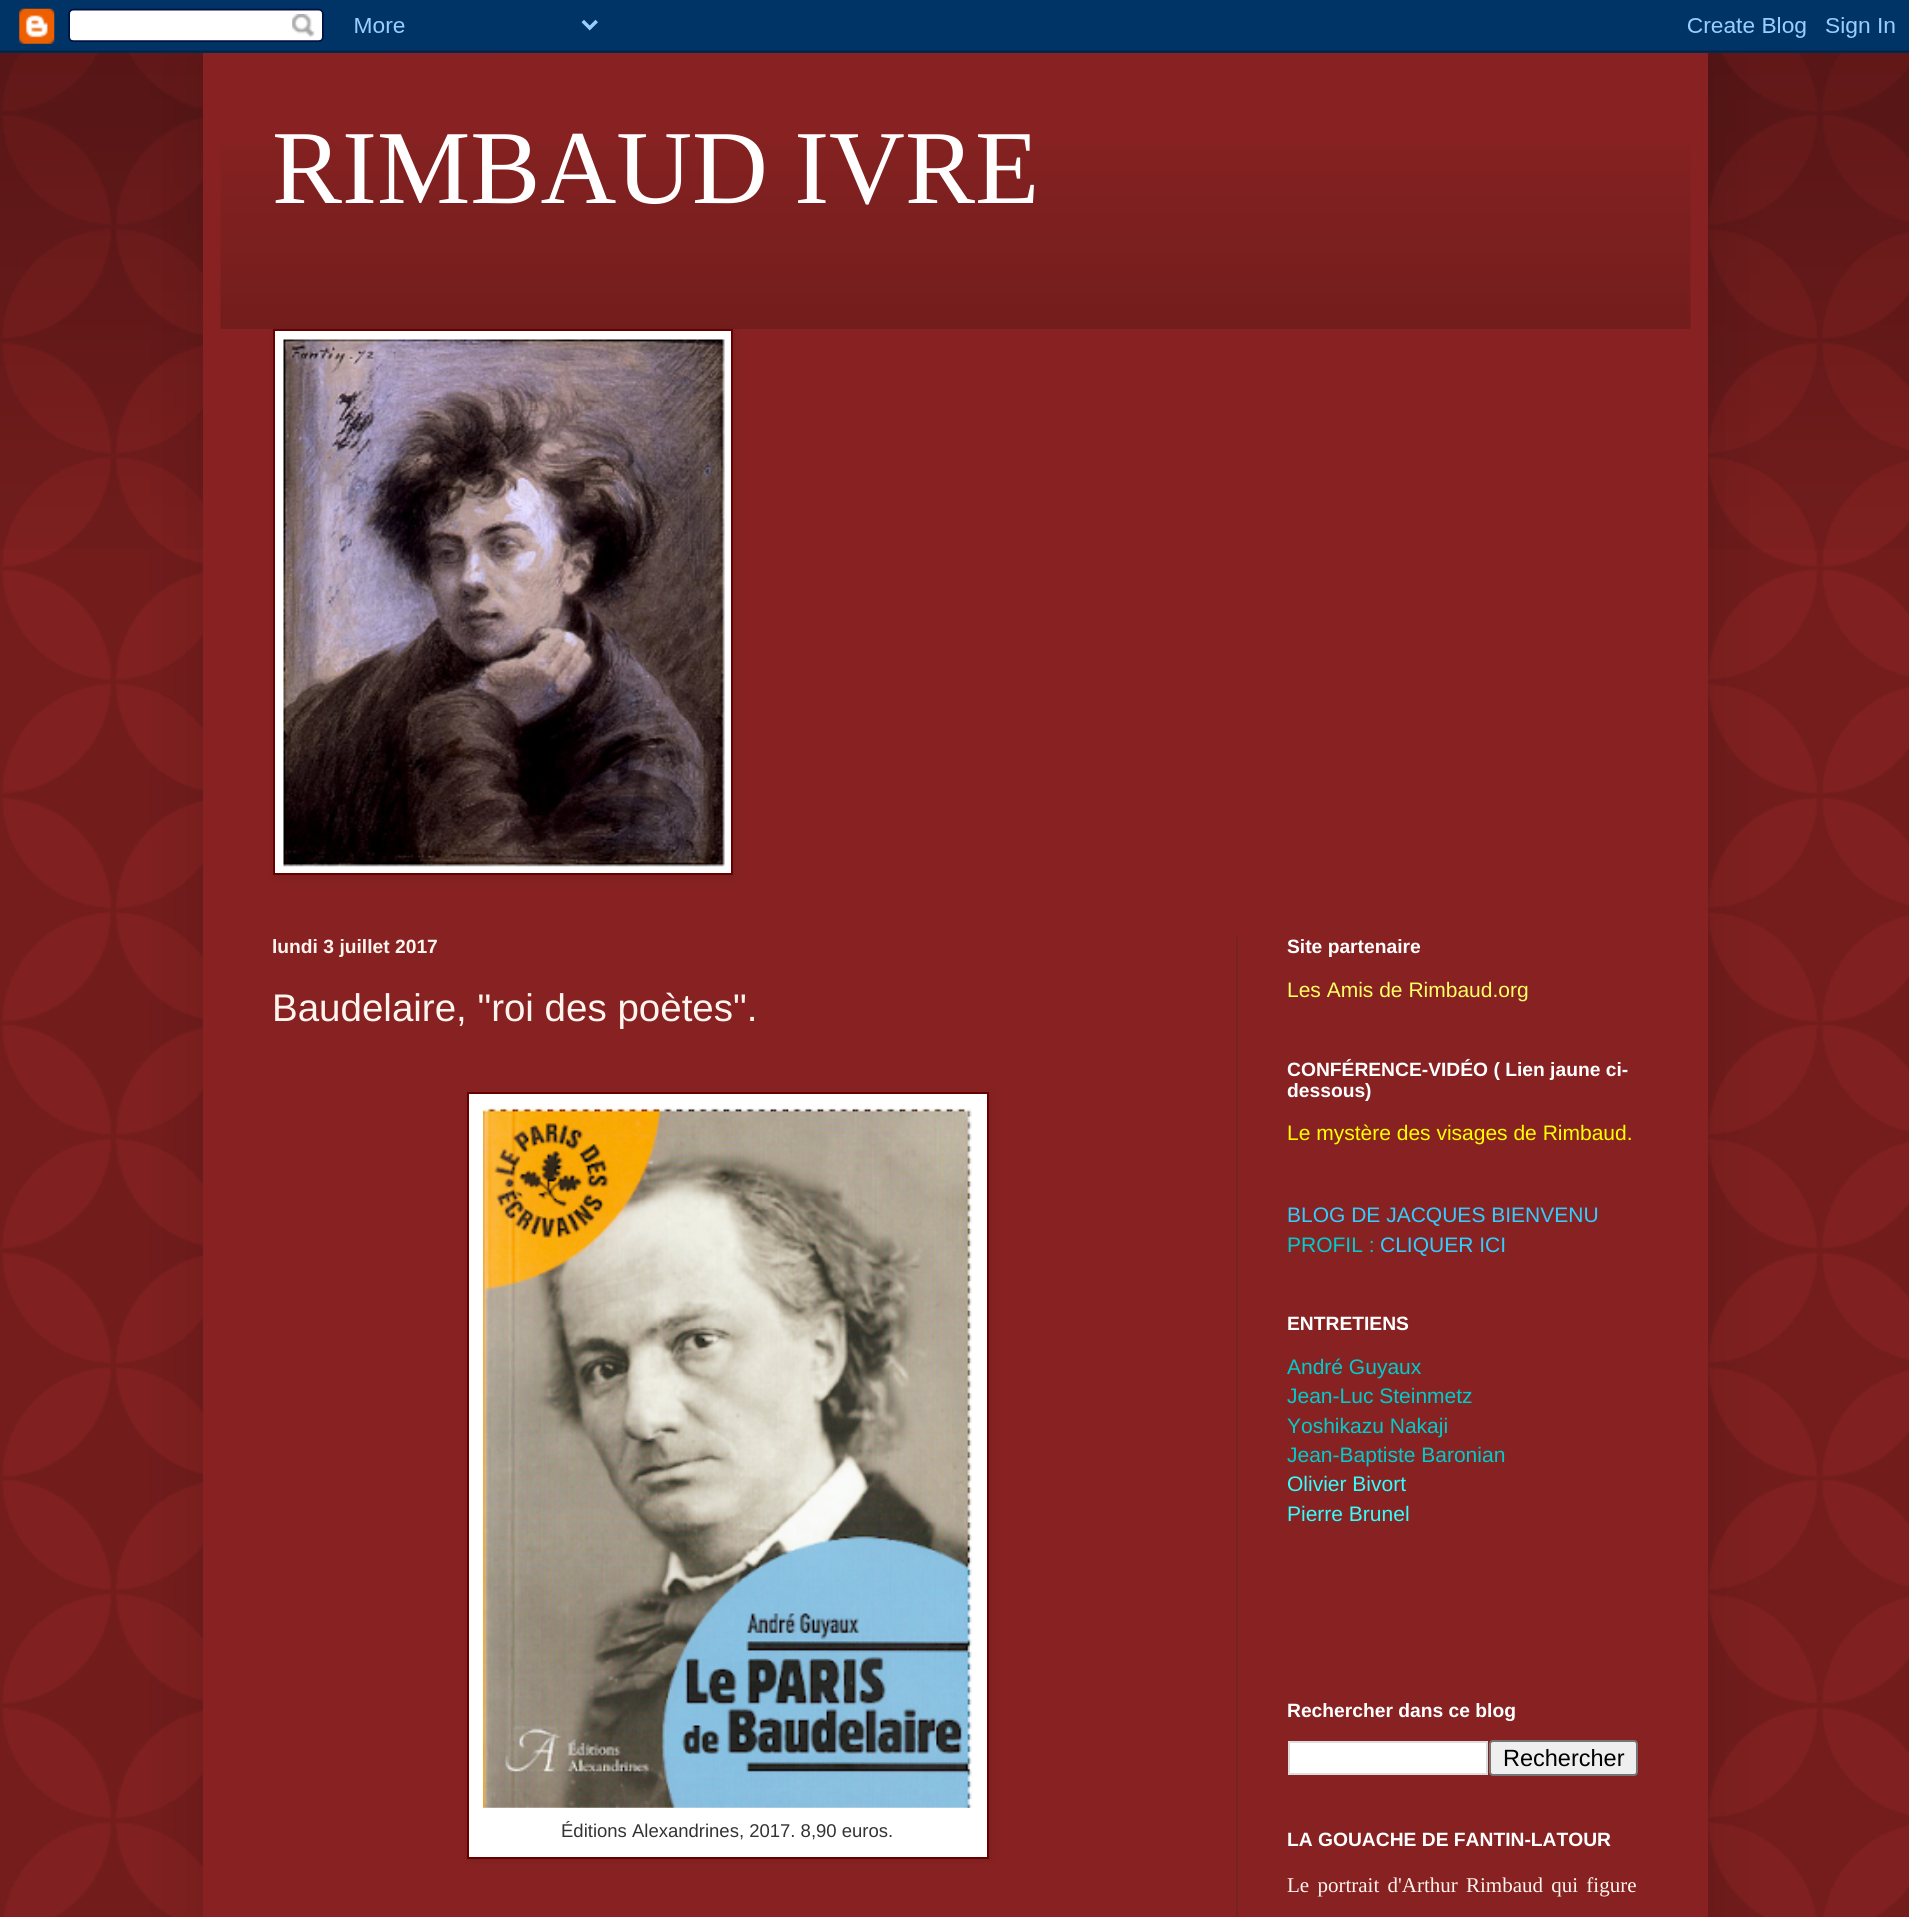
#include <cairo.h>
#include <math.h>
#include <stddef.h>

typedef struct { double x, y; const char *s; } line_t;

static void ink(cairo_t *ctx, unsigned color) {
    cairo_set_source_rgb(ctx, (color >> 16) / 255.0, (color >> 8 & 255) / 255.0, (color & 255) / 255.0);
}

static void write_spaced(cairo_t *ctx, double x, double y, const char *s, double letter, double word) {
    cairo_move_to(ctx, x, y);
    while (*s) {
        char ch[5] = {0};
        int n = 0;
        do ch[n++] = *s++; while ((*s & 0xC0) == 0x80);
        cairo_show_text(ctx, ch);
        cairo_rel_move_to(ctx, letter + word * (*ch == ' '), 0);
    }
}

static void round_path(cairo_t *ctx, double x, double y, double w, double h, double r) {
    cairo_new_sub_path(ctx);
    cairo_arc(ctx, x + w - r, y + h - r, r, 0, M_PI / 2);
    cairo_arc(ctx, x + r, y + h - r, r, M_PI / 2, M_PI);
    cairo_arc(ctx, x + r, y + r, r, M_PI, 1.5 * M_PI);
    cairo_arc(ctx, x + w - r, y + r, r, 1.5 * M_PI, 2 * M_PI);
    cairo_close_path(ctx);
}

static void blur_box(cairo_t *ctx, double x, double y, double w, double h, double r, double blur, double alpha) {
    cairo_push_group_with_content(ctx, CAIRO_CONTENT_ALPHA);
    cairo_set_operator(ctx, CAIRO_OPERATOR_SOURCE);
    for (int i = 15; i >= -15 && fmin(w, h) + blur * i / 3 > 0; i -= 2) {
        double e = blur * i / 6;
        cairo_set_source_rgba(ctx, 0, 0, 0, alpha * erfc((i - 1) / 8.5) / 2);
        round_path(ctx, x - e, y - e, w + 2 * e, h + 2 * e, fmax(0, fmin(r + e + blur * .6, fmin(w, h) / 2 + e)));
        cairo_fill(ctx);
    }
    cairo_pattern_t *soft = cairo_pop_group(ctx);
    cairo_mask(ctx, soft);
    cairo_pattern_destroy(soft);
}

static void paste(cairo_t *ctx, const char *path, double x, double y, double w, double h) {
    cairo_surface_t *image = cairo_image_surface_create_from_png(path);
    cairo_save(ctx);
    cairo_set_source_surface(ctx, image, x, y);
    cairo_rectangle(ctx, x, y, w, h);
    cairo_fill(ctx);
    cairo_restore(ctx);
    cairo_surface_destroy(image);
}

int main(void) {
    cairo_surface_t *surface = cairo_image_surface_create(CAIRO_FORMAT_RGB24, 1909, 1917);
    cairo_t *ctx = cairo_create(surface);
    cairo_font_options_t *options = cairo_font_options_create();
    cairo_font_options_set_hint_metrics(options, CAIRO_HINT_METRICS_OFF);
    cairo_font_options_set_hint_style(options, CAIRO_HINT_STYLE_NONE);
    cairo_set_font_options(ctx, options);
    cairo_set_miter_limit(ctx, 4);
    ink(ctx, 0x882222);
    cairo_paint(ctx);
    paste(ctx, "media/1.png", 0, 50, 1909, 1867);
    paste(ctx, "media/3.png", 0, 50, 1909, 499);
    ink(ctx, 0x000000);
    blur_box(ctx, 203, 53, 1505, 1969, 0, 35, 0.15);
    paste(ctx, "media/2.png", 0, 0, 1909, 53);
    ink(ctx, 0x882222);
    cairo_rectangle(ctx, 203, 53, 1505, 1864);
    cairo_fill(ctx);
    paste(ctx, "media/4.png", 220, 143, 1471, 186);
    cairo_select_font_face(ctx, "Liberation Serif", CAIRO_FONT_SLANT_NORMAL, CAIRO_FONT_WEIGHT_NORMAL);
    cairo_set_font_size(ctx, 105);
    ink(ctx, 0xFFFFFF);
    cairo_move_to(ctx, 272, 203);
    cairo_show_text(ctx, "RIMBAUD IVRE");
    ink(ctx, 0x000000);
    blur_box(ctx, 275, 331, 460, 546, 0, 4.5, 0.1);
    ink(ctx, 0xFFFFFF);
    cairo_rectangle(ctx, 274, 330, 458, 544);
    cairo_fill_preserve(ctx);
    ink(ctx, 0x660000);
    cairo_stroke(ctx);
    paste(ctx, "media/5.png", 283, 339, 442, 528);
    ink(ctx, 0x772222);
    cairo_rectangle(ctx, 1236, 936, 2, 981);
    cairo_fill(ctx);
    cairo_select_font_face(ctx, "Liberation Sans", CAIRO_FONT_SLANT_NORMAL, CAIRO_FONT_WEIGHT_BOLD);
    cairo_set_font_size(ctx, 19.25);
    ink(ctx, 0xFFF5EE);
    cairo_move_to(ctx, 272, 953);
    cairo_show_text(ctx, "lundi 3 juillet 2017");
    cairo_select_font_face(ctx, "Liberation Sans", CAIRO_FONT_SLANT_NORMAL, CAIRO_FONT_WEIGHT_NORMAL);
    cairo_set_font_size(ctx, 38.5);
    cairo_move_to(ctx, 272, 1021);
    cairo_show_text(ctx, "Baudelaire, \"roi des poètes\".");
    ink(ctx, 0x000000);
    blur_box(ctx, 469, 1094, 522, 766, 0, 4.5, 0.1);
    ink(ctx, 0xFFFFFF);
    cairo_rectangle(ctx, 468, 1093, 520, 765);
    cairo_fill_preserve(ctx);
    ink(ctx, 0x660000);
    cairo_stroke(ctx);
    paste(ctx, "media/6.png", 483, 1107, 490, 701);
    cairo_set_font_size(ctx, 18.5);
    ink(ctx, 0x333333);
    cairo_move_to(ctx, 561, 1837);
    cairo_show_text(ctx, "Éditions Alexandrines, 2017. 8,90 euros.");
    cairo_select_font_face(ctx, "Liberation Sans", CAIRO_FONT_SLANT_NORMAL, CAIRO_FONT_WEIGHT_BOLD);
    cairo_set_font_size(ctx, 19.25);
    ink(ctx, 0xFFFFFF);
    cairo_move_to(ctx, 1287, 953);
    cairo_show_text(ctx, "Site partenaire");
    cairo_select_font_face(ctx, "Liberation Sans", CAIRO_FONT_SLANT_NORMAL, CAIRO_FONT_WEIGHT_NORMAL);
    cairo_set_font_size(ctx, 21);
    ink(ctx, 0xFFFF66);
    cairo_move_to(ctx, 1287, 997);
    cairo_show_text(ctx, "Les Amis de Rimbaud.org");
    cairo_select_font_face(ctx, "Liberation Sans", CAIRO_FONT_SLANT_NORMAL, CAIRO_FONT_WEIGHT_BOLD);
    cairo_set_font_size(ctx, 19.25);
    ink(ctx, 0xFFFFFF);
    cairo_move_to(ctx, 1287, 1076);
    cairo_show_text(ctx, "CONFÉRENCE-VIDÉO ( Lien jaune ci-");
    cairo_move_to(ctx, 1287, 1097);
    cairo_show_text(ctx, "dessous)");
    cairo_select_font_face(ctx, "Liberation Sans", CAIRO_FONT_SLANT_NORMAL, CAIRO_FONT_WEIGHT_NORMAL);
    cairo_set_font_size(ctx, 21);
    ink(ctx, 0xFFFF00);
    cairo_move_to(ctx, 1287, 1140);
    cairo_show_text(ctx, "Le mystère des visages de Rimbaud.");
    ink(ctx, 0x33CCFF);
    cairo_move_to(ctx, 1287, 1222);
    cairo_show_text(ctx, "BLOG DE JACQUES BIENVENU");
    ink(ctx, 0x00CCCC);
    cairo_move_to(ctx, 1287, 1252);
    cairo_show_text(ctx, "PROFIL :");
    ink(ctx, 0x33CCFF);
    cairo_move_to(ctx, 1380, 1252);
    cairo_show_text(ctx, "CLIQUER ICI");
    cairo_select_font_face(ctx, "Liberation Sans", CAIRO_FONT_SLANT_NORMAL, CAIRO_FONT_WEIGHT_BOLD);
    cairo_set_font_size(ctx, 19.25);
    ink(ctx, 0xFFFFFF);
    cairo_move_to(ctx, 1287, 1330);
    cairo_show_text(ctx, "ENTRETIENS");
    cairo_select_font_face(ctx, "Liberation Sans", CAIRO_FONT_SLANT_NORMAL, CAIRO_FONT_WEIGHT_NORMAL);
    cairo_set_font_size(ctx, 21);
    ink(ctx, 0x00CCCC);
    {
        static const line_t items[] = {
            {1287, 1374, "André Guyaux"},
            {1287, 1403, "Jean-Luc Steinmetz"},
            {1287, 1433, "Yoshikazu Nakaji"},
            {1287, 1462, "Jean-Baptiste Baronian"},
        };
        for (size_t i = 0; i < sizeof items / sizeof *items; i++) {
            cairo_move_to(ctx, items[i].x, items[i].y);
            cairo_show_text(ctx, items[i].s);
        }
    }
    ink(ctx, 0x33FFFF);
    cairo_move_to(ctx, 1287, 1491);
    cairo_show_text(ctx, "Olivier Bivort");
    cairo_move_to(ctx, 1287, 1521);
    cairo_show_text(ctx, "Pierre Brunel");
    cairo_select_font_face(ctx, "Liberation Sans", CAIRO_FONT_SLANT_NORMAL, CAIRO_FONT_WEIGHT_BOLD);
    cairo_set_font_size(ctx, 19.25);
    ink(ctx, 0xFFFFFF);
    cairo_move_to(ctx, 1287, 1717);
    cairo_show_text(ctx, "Rechercher dans ce blog");
    cairo_rectangle(ctx, 1289, 1742, 198, 32);
    cairo_fill_preserve(ctx);
    ink(ctx, 0xDDDDDD);
    cairo_stroke(ctx);
    ink(ctx, 0xEFEFEF);
    round_path(ctx, 1490, 1741, 147, 34, 3);
    cairo_fill_preserve(ctx);
    ink(ctx, 0x767676);
    cairo_stroke(ctx);
    cairo_select_font_face(ctx, "Liberation Sans", CAIRO_FONT_SLANT_NORMAL, CAIRO_FONT_WEIGHT_NORMAL);
    cairo_set_font_size(ctx, 23.5);
    ink(ctx, 0x000000);
    cairo_move_to(ctx, 1503, 1766);
    cairo_show_text(ctx, "Rechercher");
    cairo_select_font_face(ctx, "Liberation Sans", CAIRO_FONT_SLANT_NORMAL, CAIRO_FONT_WEIGHT_BOLD);
    cairo_set_font_size(ctx, 19.25);
    ink(ctx, 0xFFFFFF);
    cairo_move_to(ctx, 1287, 1846);
    cairo_show_text(ctx, "LA GOUACHE DE FANTIN-LATOUR");
    cairo_select_font_face(ctx, "Liberation Serif", CAIRO_FONT_SLANT_NORMAL, CAIRO_FONT_WEIGHT_NORMAL);
    cairo_set_font_size(ctx, 21);
    ink(ctx, 0xFFF5EE);
    write_spaced(ctx, 1287, 1892, "Le portrait d'Arthur Rimbaud qui figure", 0, 3);
    cairo_surface_write_to_png(surface, "image.png");
    cairo_font_options_destroy(options);
    cairo_destroy(ctx);
    cairo_surface_destroy(surface);
    return 0;
}
